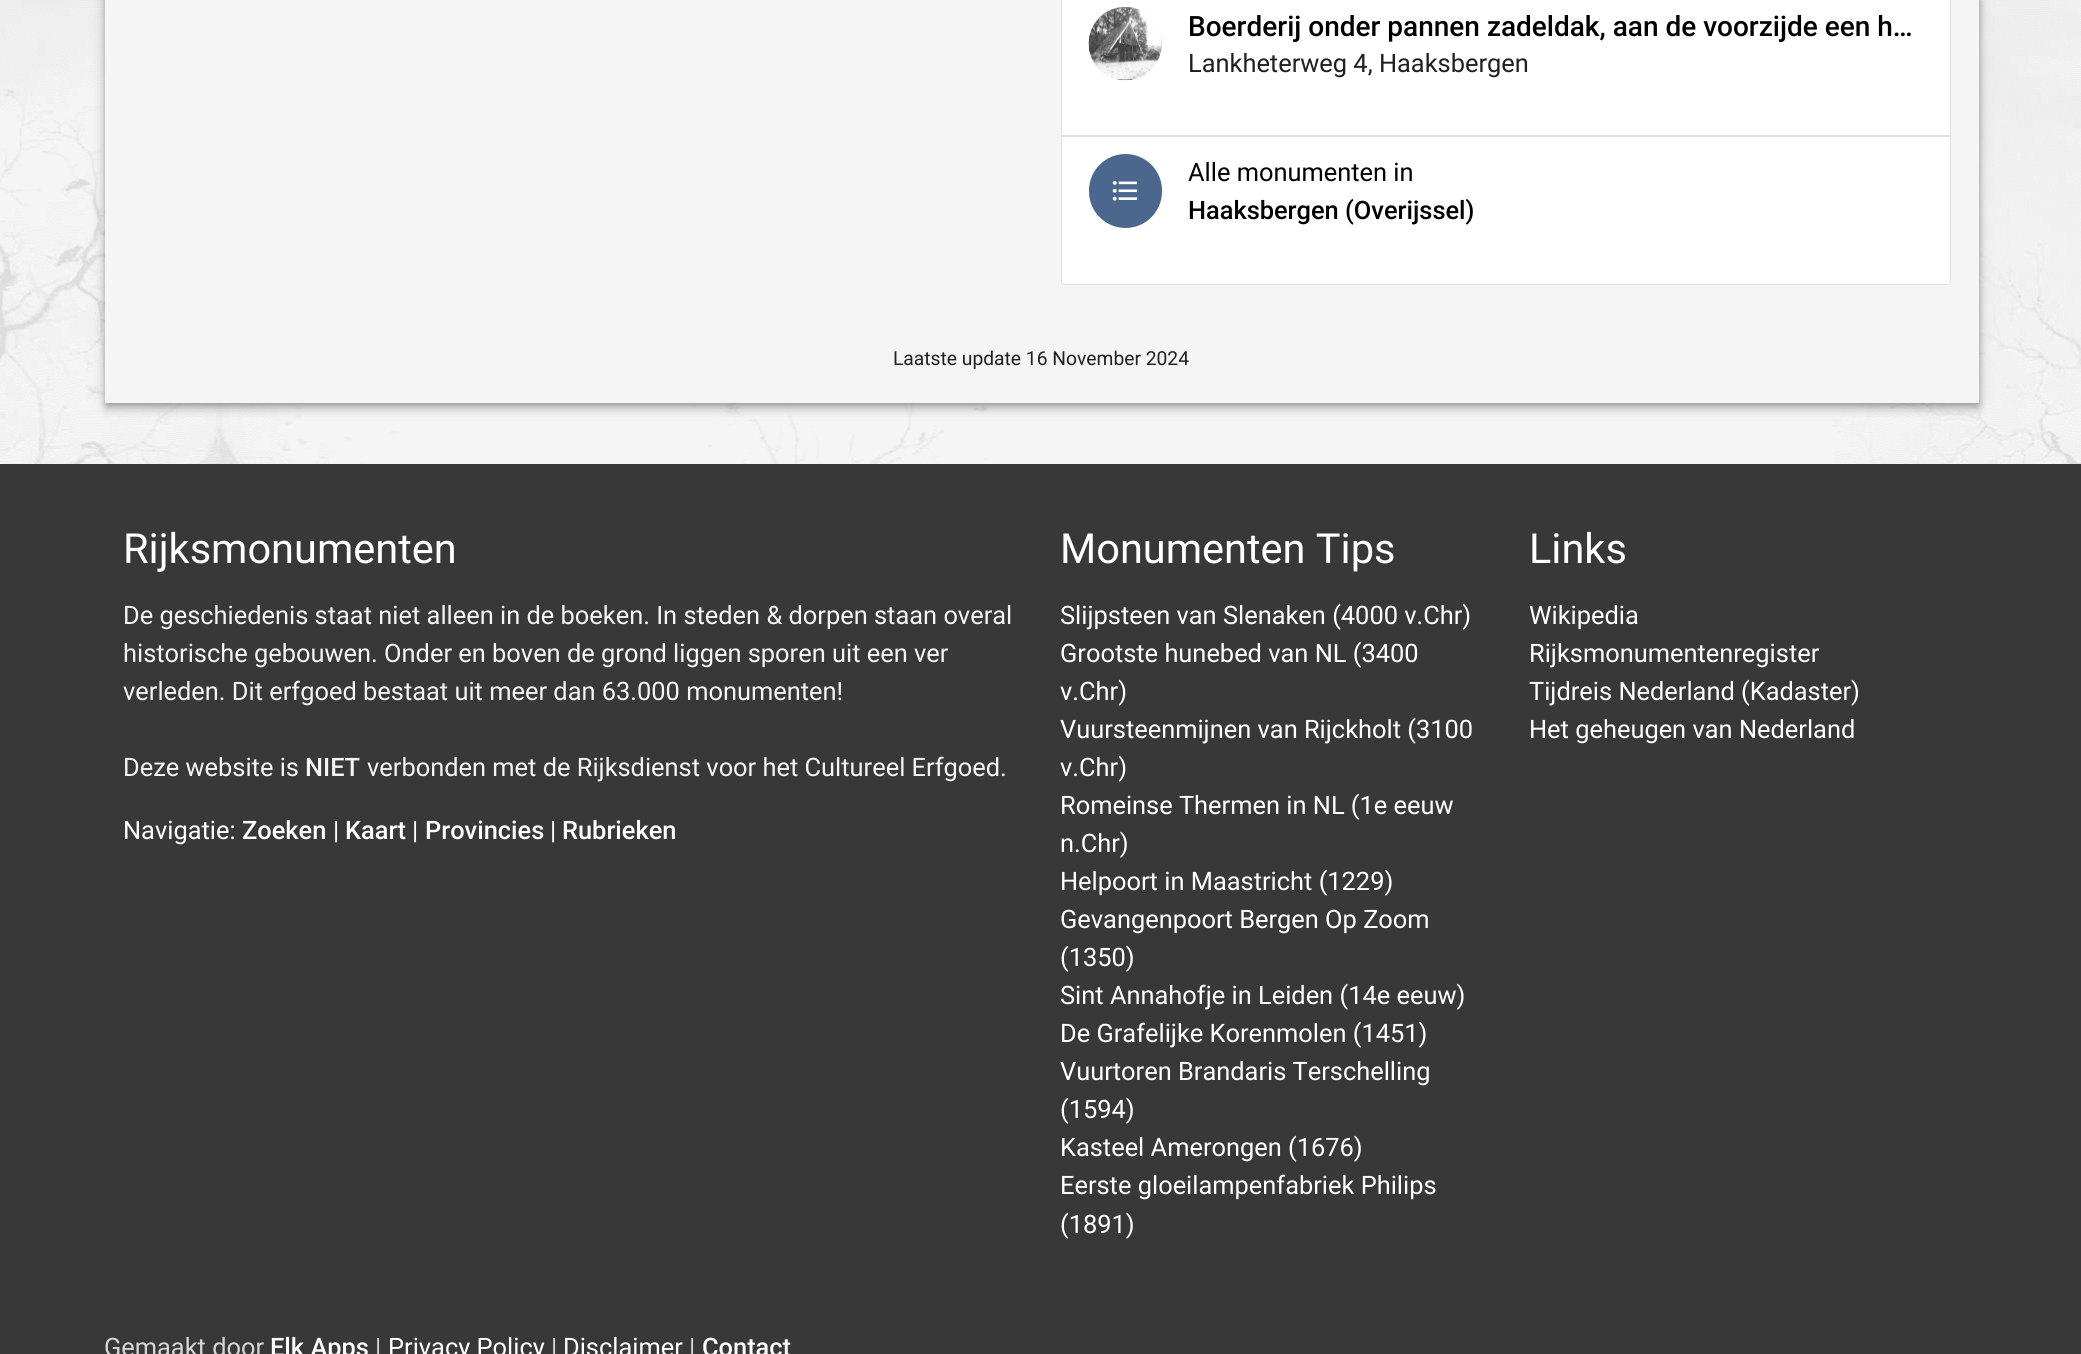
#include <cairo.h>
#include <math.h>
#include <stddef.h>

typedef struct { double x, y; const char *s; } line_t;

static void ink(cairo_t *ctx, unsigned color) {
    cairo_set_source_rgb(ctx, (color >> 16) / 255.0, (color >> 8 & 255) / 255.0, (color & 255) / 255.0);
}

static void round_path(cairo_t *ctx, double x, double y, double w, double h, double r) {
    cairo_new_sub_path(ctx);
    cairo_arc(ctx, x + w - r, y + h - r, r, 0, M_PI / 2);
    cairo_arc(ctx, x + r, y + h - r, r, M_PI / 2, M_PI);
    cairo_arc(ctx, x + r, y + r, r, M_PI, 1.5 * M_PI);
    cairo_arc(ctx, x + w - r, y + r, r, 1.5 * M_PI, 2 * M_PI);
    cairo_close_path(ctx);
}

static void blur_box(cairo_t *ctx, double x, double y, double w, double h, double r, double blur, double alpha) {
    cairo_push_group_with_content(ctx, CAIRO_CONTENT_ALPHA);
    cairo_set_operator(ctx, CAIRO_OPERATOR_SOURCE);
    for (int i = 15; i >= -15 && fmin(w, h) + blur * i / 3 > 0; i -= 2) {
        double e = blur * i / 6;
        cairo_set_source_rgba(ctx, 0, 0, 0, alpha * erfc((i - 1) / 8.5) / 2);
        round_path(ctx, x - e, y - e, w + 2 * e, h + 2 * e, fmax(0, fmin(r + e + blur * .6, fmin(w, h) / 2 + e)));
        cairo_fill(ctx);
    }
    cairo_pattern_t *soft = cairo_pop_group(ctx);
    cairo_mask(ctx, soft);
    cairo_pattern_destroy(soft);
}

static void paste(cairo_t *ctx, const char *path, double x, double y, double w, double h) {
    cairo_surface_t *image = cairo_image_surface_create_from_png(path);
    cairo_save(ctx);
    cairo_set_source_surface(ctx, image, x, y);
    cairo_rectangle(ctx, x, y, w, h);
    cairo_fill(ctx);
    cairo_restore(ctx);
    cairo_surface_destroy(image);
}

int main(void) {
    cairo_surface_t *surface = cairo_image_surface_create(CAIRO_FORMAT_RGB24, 2081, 1354);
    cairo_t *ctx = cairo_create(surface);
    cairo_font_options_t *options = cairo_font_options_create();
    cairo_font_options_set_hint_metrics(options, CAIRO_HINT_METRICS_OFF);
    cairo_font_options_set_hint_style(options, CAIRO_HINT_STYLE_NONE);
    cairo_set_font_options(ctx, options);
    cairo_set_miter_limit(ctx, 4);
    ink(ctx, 0xFFFFFF);
    cairo_paint(ctx);
    paste(ctx, "media/1.png", 0, 0, 2081, 464);
    ink(ctx, 0x000000);
    blur_box(ctx, 107, -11, 1871, 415, 0, 3.5, 0.3);
    blur_box(ctx, 105, -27, 1874, 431, 0, 9, 0.12);
    blur_box(ctx, 105, -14, 1874, 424, 0, 4.5, 0.14);
    ink(ctx, 0xF5F5F5);
    cairo_rectangle(ctx, 105, 0, 1874, 403);
    cairo_fill(ctx);
    round_path(ctx, 1062, -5, 888, 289, 3);
    ink(ctx, 0xE0E0E0);
    cairo_stroke(ctx);
    ink(ctx, 0xFFFFFF);
    cairo_rectangle(ctx, 1062, 0, 888, 135);
    cairo_fill(ctx);
    ink(ctx, 0xE0E0E0);
    cairo_rectangle(ctx, 1062, 135, 888, 2);
    cairo_fill(ctx);
    paste(ctx, "media/2.png", 1088, 6, 74, 75);
    cairo_select_font_face(ctx, "Roboto Medium", CAIRO_FONT_SLANT_NORMAL, CAIRO_FONT_WEIGHT_NORMAL);
    cairo_set_font_size(ctx, 28);
    ink(ctx, 0x000000);
    cairo_move_to(ctx, 1188, 36);
    cairo_show_text(ctx, "Boerderij onder pannen zadeldak, aan de voorzijde een h…");
    cairo_select_font_face(ctx, "Roboto", CAIRO_FONT_SLANT_NORMAL, CAIRO_FONT_WEIGHT_NORMAL);
    cairo_set_font_size(ctx, 25.4);
    ink(ctx, 0x202020);
    cairo_move_to(ctx, 1188, 72);
    cairo_show_text(ctx, "Lankheterweg 4, Haaksbergen");
    ink(ctx, 0xFFFFFF);
    cairo_new_path(ctx);
    cairo_move_to(ctx, 1062, 137);
    cairo_line_to(ctx, 1950, 137);
    cairo_line_to(ctx, 1950, 282);
    cairo_curve_to(ctx, 1950, 283, 1949, 284, 1948, 284);
    cairo_line_to(ctx, 1064, 284);
    cairo_curve_to(ctx, 1063, 284, 1062, 283, 1062, 282);
    cairo_close_path(ctx);
    cairo_fill(ctx);
    ink(ctx, 0x4C678E);
    round_path(ctx, 1089, 154, 73, 74, 36.5);
    cairo_fill(ctx);
    paste(ctx, "media/3.png", 1112, 180, 26, 21);
    ink(ctx, 0x000000);
    cairo_move_to(ctx, 1188, 181);
    cairo_show_text(ctx, "Alle monumenten in");
    cairo_select_font_face(ctx, "Roboto Medium", CAIRO_FONT_SLANT_NORMAL, CAIRO_FONT_WEIGHT_NORMAL);
    cairo_move_to(ctx, 1188, 219);
    cairo_show_text(ctx, "Haaksbergen (Overijssel)");
    cairo_select_font_face(ctx, "Roboto", CAIRO_FONT_SLANT_NORMAL, CAIRO_FONT_WEIGHT_NORMAL);
    cairo_set_font_size(ctx, 19.25);
    ink(ctx, 0x202020);
    cairo_move_to(ctx, 893, 365);
    cairo_show_text(ctx, "Laatste update 16 November 2024");
    ink(ctx, 0x383838);
    cairo_rectangle(ctx, 0, 464, 2081, 890);
    cairo_fill(ctx);
    cairo_set_font_size(ctx, 41.5);
    ink(ctx, 0xFFFFFF);
    cairo_move_to(ctx, 123, 563);
    cairo_show_text(ctx, "Rijksmonumenten");
    cairo_set_font_size(ctx, 25.4);
    ink(ctx, 0xF5F5F5);
    {
        static const line_t items[] = {
            {123, 624, "De geschiedenis staat niet alleen in de boeken. In steden & dorpen staan overal"},
            {123, 662, "historische gebouwen. Onder en boven de grond liggen sporen uit een ver"},
            {123, 700, "verleden. Dit erfgoed bestaat uit meer dan 63.000 monumenten!"},
            {123, 776, "Deze website is"},
        };
        for (size_t i = 0; i < sizeof items / sizeof *items; i++) {
            cairo_move_to(ctx, items[i].x, items[i].y);
            cairo_show_text(ctx, items[i].s);
        }
    }
    cairo_select_font_face(ctx, "Roboto Medium", CAIRO_FONT_SLANT_NORMAL, CAIRO_FONT_WEIGHT_NORMAL);
    cairo_move_to(ctx, 305, 776);
    cairo_show_text(ctx, "NIET");
    cairo_select_font_face(ctx, "Roboto", CAIRO_FONT_SLANT_NORMAL, CAIRO_FONT_WEIGHT_NORMAL);
    cairo_move_to(ctx, 367, 776);
    cairo_show_text(ctx, "verbonden met de Rijksdienst voor het Cultureel Erfgoed.");
    ink(ctx, 0xFFFFFF);
    cairo_move_to(ctx, 123, 839);
    cairo_show_text(ctx, "Navigatie:");
    cairo_select_font_face(ctx, "Roboto Medium", CAIRO_FONT_SLANT_NORMAL, CAIRO_FONT_WEIGHT_NORMAL);
    cairo_move_to(ctx, 242, 839);
    cairo_show_text(ctx, "Zoeken");
    cairo_select_font_face(ctx, "Roboto", CAIRO_FONT_SLANT_NORMAL, CAIRO_FONT_WEIGHT_NORMAL);
    cairo_move_to(ctx, 333, 839);
    cairo_show_text(ctx, "|");
    cairo_select_font_face(ctx, "Roboto Medium", CAIRO_FONT_SLANT_NORMAL, CAIRO_FONT_WEIGHT_NORMAL);
    cairo_move_to(ctx, 345, 839);
    cairo_show_text(ctx, "Kaart");
    cairo_select_font_face(ctx, "Roboto", CAIRO_FONT_SLANT_NORMAL, CAIRO_FONT_WEIGHT_NORMAL);
    cairo_move_to(ctx, 412, 839);
    cairo_show_text(ctx, "|");
    cairo_select_font_face(ctx, "Roboto Medium", CAIRO_FONT_SLANT_NORMAL, CAIRO_FONT_WEIGHT_NORMAL);
    cairo_move_to(ctx, 425, 839);
    cairo_show_text(ctx, "Provincies");
    cairo_select_font_face(ctx, "Roboto", CAIRO_FONT_SLANT_NORMAL, CAIRO_FONT_WEIGHT_NORMAL);
    cairo_move_to(ctx, 550, 839);
    cairo_show_text(ctx, "|");
    cairo_select_font_face(ctx, "Roboto Medium", CAIRO_FONT_SLANT_NORMAL, CAIRO_FONT_WEIGHT_NORMAL);
    cairo_move_to(ctx, 562, 839);
    cairo_show_text(ctx, "Rubrieken");
    cairo_select_font_face(ctx, "Roboto", CAIRO_FONT_SLANT_NORMAL, CAIRO_FONT_WEIGHT_NORMAL);
    cairo_set_font_size(ctx, 41.5);
    cairo_move_to(ctx, 1060, 563);
    cairo_show_text(ctx, "Monumenten Tips");
    cairo_set_font_size(ctx, 25.4);
    {
        static const line_t items[] = {
            {1060, 624, "Slijpsteen van Slenaken (4000 v.Chr)"},
            {1060, 662, "Grootste hunebed van NL (3400"},
            {1060, 700, "v.Chr)"},
            {1060, 738, "Vuursteenmijnen van Rijckholt (3100"},
            {1060, 776, "v.Chr)"},
            {1060, 814, "Romeinse Thermen in NL (1e eeuw"},
            {1060, 852, "n.Chr)"},
            {1060, 890, "Helpoort in Maastricht (1229)"},
            {1060, 928, "Gevangenpoort Bergen Op Zoom"},
            {1060, 966, "(1350)"},
            {1060, 1004, "Sint Annahofje in Leiden (14e eeuw)"},
            {1060, 1042, "De Grafelijke Korenmolen (1451)"},
            {1060, 1080, "Vuurtoren Brandaris Terschelling"},
            {1060, 1118, "(1594)"},
            {1060, 1156, "Kasteel Amerongen (1676)"},
            {1060, 1194, "Eerste gloeilampenfabriek Philips"},
            {1060, 1233, "(1891)"},
        };
        for (size_t i = 0; i < sizeof items / sizeof *items; i++) {
            cairo_move_to(ctx, items[i].x, items[i].y);
            cairo_show_text(ctx, items[i].s);
        }
    }
    cairo_set_font_size(ctx, 41.5);
    cairo_move_to(ctx, 1529, 563);
    cairo_show_text(ctx, "Links");
    cairo_set_font_size(ctx, 25.4);
    {
        static const line_t items[] = {
            {1529, 624, "Wikipedia"},
            {1529, 662, "Rijksmonumentenregister"},
            {1529, 700, "Tijdreis Nederland (Kadaster)"},
            {1529, 738, "Het geheugen van Nederland"},
        };
        for (size_t i = 0; i < sizeof items / sizeof *items; i++) {
            cairo_move_to(ctx, items[i].x, items[i].y);
            cairo_show_text(ctx, items[i].s);
        }
    }
    ink(ctx, 0xD7D7D7);
    cairo_move_to(ctx, 104, 1356);
    cairo_show_text(ctx, "Gemaakt door");
    cairo_select_font_face(ctx, "Roboto Medium", CAIRO_FONT_SLANT_NORMAL, CAIRO_FONT_WEIGHT_NORMAL);
    ink(ctx, 0xFFFFFF);
    cairo_move_to(ctx, 270, 1356);
    cairo_show_text(ctx, "Elk Apps");
    cairo_select_font_face(ctx, "Roboto", CAIRO_FONT_SLANT_NORMAL, CAIRO_FONT_WEIGHT_NORMAL);
    ink(ctx, 0xD7D7D7);
    cairo_move_to(ctx, 375, 1356);
    cairo_show_text(ctx, "|");
    ink(ctx, 0xFFFFFF);
    cairo_move_to(ctx, 388, 1356);
    cairo_show_text(ctx, "Privacy Policy");
    ink(ctx, 0xD7D7D7);
    cairo_move_to(ctx, 551, 1356);
    cairo_show_text(ctx, "|");
    ink(ctx, 0xFFFFFF);
    cairo_move_to(ctx, 563, 1356);
    cairo_show_text(ctx, "Disclaimer");
    ink(ctx, 0xD7D7D7);
    cairo_move_to(ctx, 689, 1356);
    cairo_show_text(ctx, "|");
    cairo_select_font_face(ctx, "Roboto Medium", CAIRO_FONT_SLANT_NORMAL, CAIRO_FONT_WEIGHT_NORMAL);
    ink(ctx, 0xFFFFFF);
    cairo_move_to(ctx, 702, 1356);
    cairo_show_text(ctx, "Contact");
    cairo_surface_write_to_png(surface, "image.png");
    cairo_font_options_destroy(options);
    cairo_destroy(ctx);
    cairo_surface_destroy(surface);
    return 0;
}
